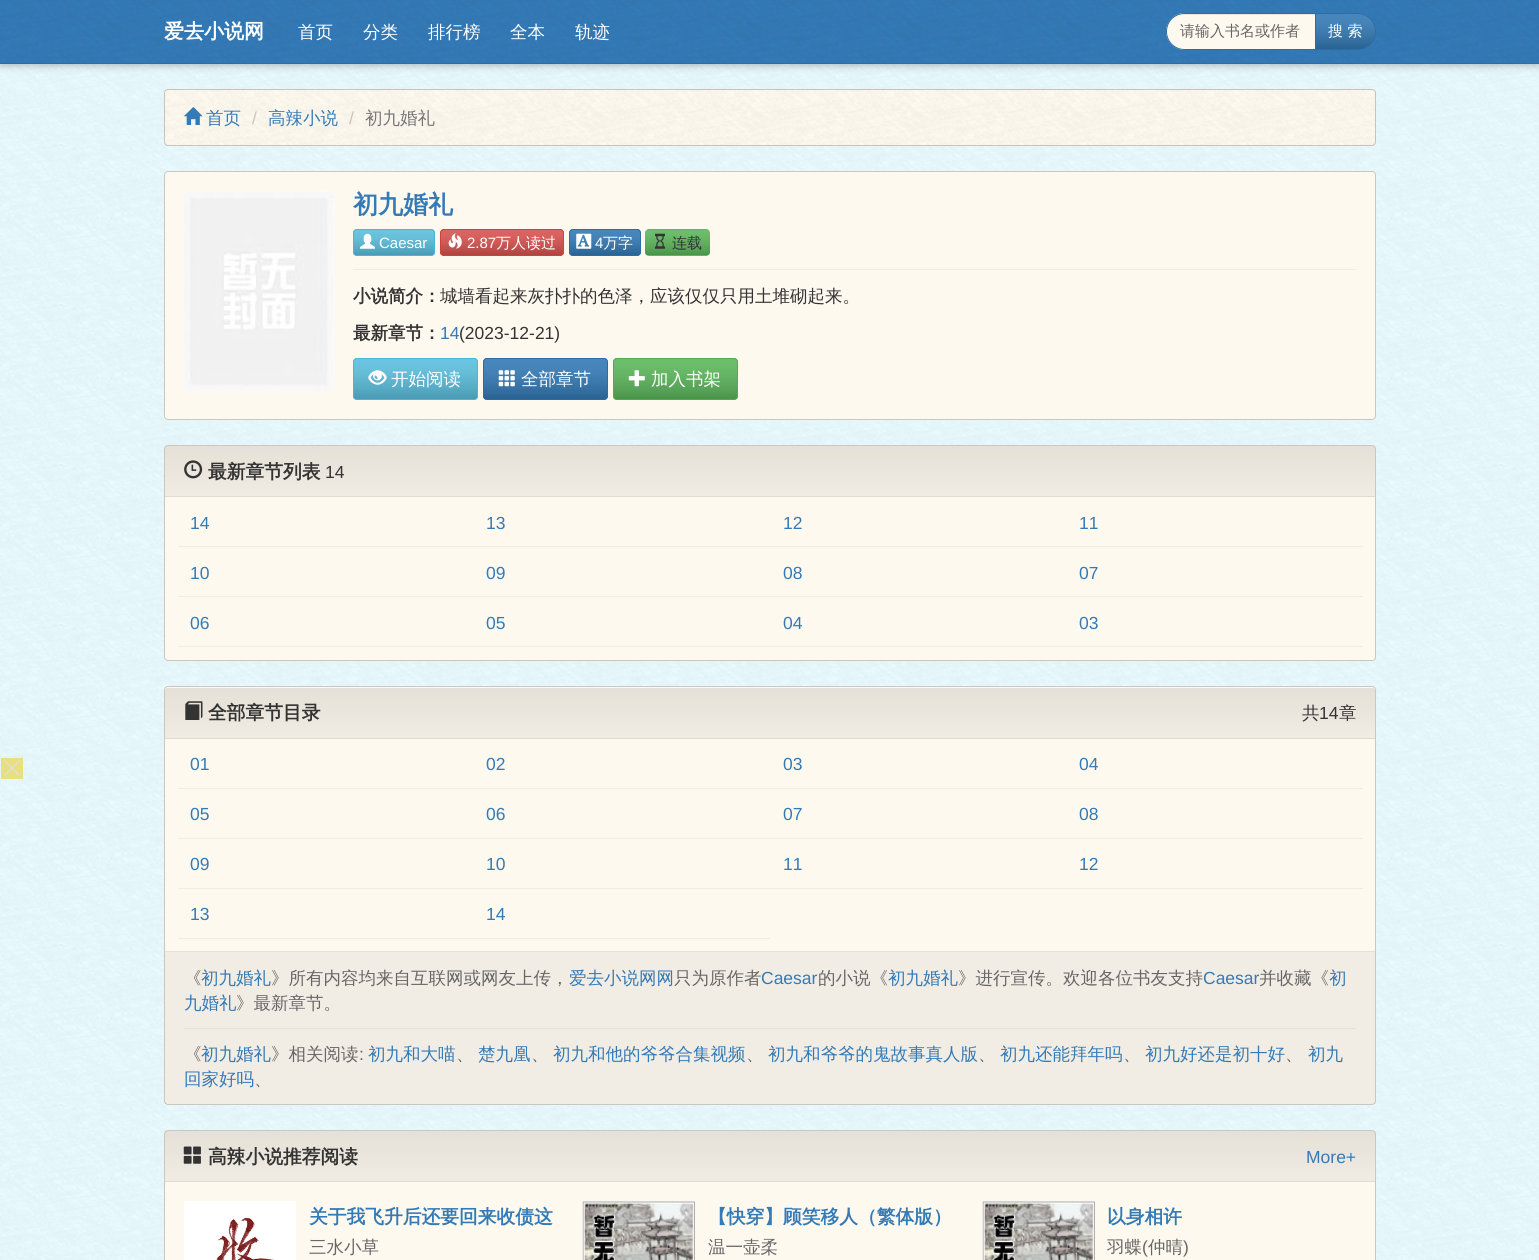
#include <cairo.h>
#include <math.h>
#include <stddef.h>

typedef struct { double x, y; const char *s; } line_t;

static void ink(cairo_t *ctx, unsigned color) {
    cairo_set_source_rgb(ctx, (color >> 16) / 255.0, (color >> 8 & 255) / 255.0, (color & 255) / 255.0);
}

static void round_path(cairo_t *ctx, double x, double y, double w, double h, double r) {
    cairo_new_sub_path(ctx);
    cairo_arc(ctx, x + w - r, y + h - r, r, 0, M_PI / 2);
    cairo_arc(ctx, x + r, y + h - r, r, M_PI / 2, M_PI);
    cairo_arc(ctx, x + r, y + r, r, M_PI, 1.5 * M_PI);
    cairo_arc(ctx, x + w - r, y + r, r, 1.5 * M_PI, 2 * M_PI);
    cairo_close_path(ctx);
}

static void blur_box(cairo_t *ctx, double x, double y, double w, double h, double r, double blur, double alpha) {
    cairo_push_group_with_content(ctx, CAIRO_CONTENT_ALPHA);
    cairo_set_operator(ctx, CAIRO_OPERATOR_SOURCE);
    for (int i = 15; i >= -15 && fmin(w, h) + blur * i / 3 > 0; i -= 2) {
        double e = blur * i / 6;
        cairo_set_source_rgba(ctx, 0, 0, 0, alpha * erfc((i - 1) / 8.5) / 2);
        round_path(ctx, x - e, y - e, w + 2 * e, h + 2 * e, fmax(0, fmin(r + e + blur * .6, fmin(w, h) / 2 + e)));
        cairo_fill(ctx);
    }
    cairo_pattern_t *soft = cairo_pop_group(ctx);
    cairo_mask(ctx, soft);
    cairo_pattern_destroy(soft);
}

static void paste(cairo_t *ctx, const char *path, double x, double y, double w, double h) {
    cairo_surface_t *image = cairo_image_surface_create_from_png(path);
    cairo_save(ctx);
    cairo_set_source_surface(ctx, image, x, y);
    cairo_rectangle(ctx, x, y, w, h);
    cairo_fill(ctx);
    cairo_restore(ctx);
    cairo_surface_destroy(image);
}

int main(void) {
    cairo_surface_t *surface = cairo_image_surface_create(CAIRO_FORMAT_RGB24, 1539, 1260);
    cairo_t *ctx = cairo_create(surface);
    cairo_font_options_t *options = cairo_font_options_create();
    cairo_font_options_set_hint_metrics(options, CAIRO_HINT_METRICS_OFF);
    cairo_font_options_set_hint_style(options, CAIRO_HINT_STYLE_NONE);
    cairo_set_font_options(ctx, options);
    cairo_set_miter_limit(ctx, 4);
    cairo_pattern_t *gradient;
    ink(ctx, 0xE9FAFF);
    cairo_paint(ctx);
    paste(ctx, "media/1.png", 0, 64, 1539, 1196);
    ink(ctx, 0x000000);
    blur_box(ctx, 0, 1, 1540, 64, 0, 6, 0.06);
    blur_box(ctx, 0, 5, 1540, 64, 0, 3, 0.07);
    blur_box(ctx, 1, 4, 1538, 61, 0, 2.5, 0.12);
    ink(ctx, 0x337AB7);
    cairo_rectangle(ctx, 0, 0, 1539, 63);
    cairo_fill(ctx);
    paste(ctx, "media/2.png", 0, 0, 1539, 63);
    ink(ctx, 0x2E6DA4);
    cairo_rectangle(ctx, 0, 63, 1539, 1);
    cairo_fill(ctx);
    cairo_select_font_face(ctx, "WenQuanYi Zen Hei", CAIRO_FONT_SLANT_NORMAL, CAIRO_FONT_WEIGHT_BOLD);
    cairo_set_font_size(ctx, 20);
    ink(ctx, 0xFFFFFF);
    cairo_move_to(ctx, 164, 38);
    cairo_show_text(ctx, "爱去小说网");
    cairo_select_font_face(ctx, "WenQuanYi Zen Hei Medium", CAIRO_FONT_SLANT_NORMAL, CAIRO_FONT_WEIGHT_NORMAL);
    cairo_set_font_size(ctx, 17.5);
    {
        static const line_t items[] = {
            {298, 38, "首页"},
            {363, 38, "分类"},
            {428, 38, "排行榜"},
            {510, 38, "全本"},
            {575, 38, "轨迹"},
        };
        for (size_t i = 0; i < sizeof items / sizeof *items; i++) {
            cairo_move_to(ctx, items[i].x, items[i].y);
            cairo_show_text(ctx, items[i].s);
        }
    }
    ink(ctx, 0xFEF9EF);
    cairo_new_path(ctx);
    cairo_move_to(ctx, 1184.5, 13);
    cairo_line_to(ctx, 1316, 13);
    cairo_line_to(ctx, 1316, 50);
    cairo_line_to(ctx, 1184.5, 50);
    cairo_curve_to(ctx, 1174.5, 50, 1166, 41.5, 1166, 31.5);
    cairo_curve_to(ctx, 1166, 21.5, 1174.5, 13, 1184.5, 13);
    cairo_close_path(ctx);
    cairo_fill(ctx);
    ink(ctx, 0xEBE6DD);
    cairo_new_path(ctx);
    cairo_move_to(ctx, 1185, 15);
    cairo_line_to(ctx, 1315, 15);
    cairo_line_to(ctx, 1315, 14);
    cairo_line_to(ctx, 1186, 14);
    cairo_curve_to(ctx, 1178, 14, 1172, 19, 1169, 25);
    cairo_curve_to(ctx, 1172, 19, 1177, 15, 1185, 15);
    cairo_close_path(ctx);
    cairo_fill(ctx);
    cairo_new_path(ctx);
    cairo_move_to(ctx, 1184.5, 13.5);
    cairo_line_to(ctx, 1315.5, 13.5);
    cairo_line_to(ctx, 1315.5, 49.5);
    cairo_line_to(ctx, 1184.5, 49.5);
    cairo_curve_to(ctx, 1174.5, 49.5, 1166.5, 41.5, 1166.5, 31.5);
    cairo_curve_to(ctx, 1166.5, 21.5, 1174.5, 13.5, 1184.5, 13.5);
    cairo_close_path(ctx);
    ink(ctx, 0x2E6DA4);
    cairo_set_line_width(ctx, 1);
    cairo_stroke(ctx);
    cairo_set_font_size(ctx, 15);
    ink(ctx, 0x666666);
    cairo_move_to(ctx, 1180, 36);
    cairo_show_text(ctx, "请输入书名或作者");
    ink(ctx, 0x337AB7);
    cairo_new_path(ctx);
    cairo_move_to(ctx, 1315, 13);
    cairo_line_to(ctx, 1357.5, 13);
    cairo_curve_to(ctx, 1367.5, 13, 1376, 21.5, 1376, 31.5);
    cairo_curve_to(ctx, 1376, 41.5, 1367.5, 50, 1357.5, 50);
    cairo_line_to(ctx, 1315, 50);
    cairo_close_path(ctx);
    cairo_fill(ctx);
    cairo_save(ctx);
    cairo_new_path(ctx);
    cairo_move_to(ctx, 1315, 13);
    cairo_line_to(ctx, 1357.5, 13);
    cairo_curve_to(ctx, 1367.5, 13, 1376, 21.5, 1376, 31.5);
    cairo_curve_to(ctx, 1376, 41.5, 1367.5, 50, 1357.5, 50);
    cairo_line_to(ctx, 1315, 50);
    cairo_close_path(ctx);
    cairo_clip(ctx);
    gradient = cairo_pattern_create_linear(1346, 14, 1346, 49);
    cairo_pattern_add_color_stop_rgba(gradient, 0, 1, 1, 1, 0.1);
    cairo_pattern_add_color_stop_rgba(gradient, 1, 0, 0, 0, 0.2);
    cairo_set_source(ctx, gradient);
    cairo_pattern_destroy(gradient);
    cairo_rectangle(ctx, 1316, 14, 60, 35);
    cairo_fill(ctx);
    cairo_restore(ctx);
    cairo_new_path(ctx);
    cairo_move_to(ctx, 1315.5, 13.5);
    cairo_line_to(ctx, 1357.5, 13.5);
    cairo_curve_to(ctx, 1367.5, 13.5, 1375.5, 21.5, 1375.5, 31.5);
    cairo_curve_to(ctx, 1375.5, 41.5, 1367.5, 49.5, 1357.5, 49.5);
    cairo_line_to(ctx, 1315.5, 49.5);
    cairo_close_path(ctx);
    ink(ctx, 0x2E6DA4);
    cairo_stroke(ctx);
    ink(ctx, 0xFFFFFF);
    cairo_move_to(ctx, 1328, 36);
    cairo_show_text(ctx, "搜 索");
    ink(ctx, 0xEADF7D);
    cairo_rectangle(ctx, 1, 758, 22, 21);
    cairo_fill(ctx);
    ink(ctx, 0xDDDDDD);
    cairo_new_path(ctx);
    cairo_move_to(ctx, 5, 760);
    cairo_line_to(ctx, 20, 775);
    cairo_line_to(ctx, 19, 776);
    cairo_line_to(ctx, 4, 761);
    cairo_close_path(ctx);
    cairo_fill(ctx);
    cairo_new_path(ctx);
    cairo_move_to(ctx, 4, 775);
    cairo_line_to(ctx, 19, 760);
    cairo_line_to(ctx, 20, 761);
    cairo_line_to(ctx, 5, 776);
    cairo_close_path(ctx);
    cairo_fill(ctx);
    ink(ctx, 0xFEF9EF);
    round_path(ctx, 164, 89, 1212, 57, 4);
    cairo_fill(ctx);
    paste(ctx, "media/3.png", 164, 89, 1212, 57);
    round_path(ctx, 164.5, 89.5, 1211, 56, 3.5);
    cairo_set_source_rgba(ctx, 0, 0, 0, 0.2);
    cairo_stroke(ctx);
    paste(ctx, "media/4.png", 184, 107, 19, 18);
    cairo_set_font_size(ctx, 17.5);
    ink(ctx, 0x337AB7);
    cairo_move_to(ctx, 206, 124);
    cairo_show_text(ctx, "首页");
    cairo_select_font_face(ctx, "Liberation Sans", CAIRO_FONT_SLANT_NORMAL, CAIRO_FONT_WEIGHT_NORMAL);
    ink(ctx, 0xC8C4BD);
    cairo_move_to(ctx, 252, 124);
    cairo_show_text(ctx, "/");
    cairo_select_font_face(ctx, "WenQuanYi Zen Hei Medium", CAIRO_FONT_SLANT_NORMAL, CAIRO_FONT_WEIGHT_NORMAL);
    ink(ctx, 0x337AB7);
    cairo_move_to(ctx, 268, 124);
    cairo_show_text(ctx, "高辣小说");
    cairo_select_font_face(ctx, "Liberation Sans", CAIRO_FONT_SLANT_NORMAL, CAIRO_FONT_WEIGHT_NORMAL);
    ink(ctx, 0xC8C4BD);
    cairo_move_to(ctx, 349, 124);
    cairo_show_text(ctx, "/");
    cairo_select_font_face(ctx, "WenQuanYi Zen Hei Medium", CAIRO_FONT_SLANT_NORMAL, CAIRO_FONT_WEIGHT_NORMAL);
    ink(ctx, 0x777777);
    cairo_move_to(ctx, 365, 124);
    cairo_show_text(ctx, "初九婚礼");
    ink(ctx, 0xFEF9EF);
    round_path(ctx, 164, 171, 1212, 249, 4);
    cairo_fill(ctx);
    round_path(ctx, 164.5, 171.5, 1211, 248, 3.5);
    cairo_set_source_rgba(ctx, 0, 0, 0, 0.2);
    cairo_stroke(ctx);
    ink(ctx, 0xFFFFFF);
    cairo_rectangle(ctx, 184, 191, 150, 200);
    cairo_fill(ctx);
    paste(ctx, "media/5.png", 184, 191, 150, 200);
    cairo_select_font_face(ctx, "WenQuanYi Zen Hei", CAIRO_FONT_SLANT_NORMAL, CAIRO_FONT_WEIGHT_BOLD);
    cairo_set_font_size(ctx, 25);
    ink(ctx, 0x337AB7);
    cairo_move_to(ctx, 353, 213);
    cairo_show_text(ctx, "初九婚礼");
    ink(ctx, 0x5BC0DE);
    round_path(ctx, 353, 229, 82, 27, 4);
    cairo_fill(ctx);
    cairo_save(ctx);
    round_path(ctx, 353, 229, 82, 27, 4);
    cairo_clip(ctx);
    gradient = cairo_pattern_create_linear(394, 230, 394, 255);
    cairo_pattern_add_color_stop_rgba(gradient, 0, 1, 1, 1, 0.1);
    cairo_pattern_add_color_stop_rgba(gradient, 1, 0, 0, 0, 0.2);
    cairo_set_source(ctx, gradient);
    cairo_pattern_destroy(gradient);
    cairo_rectangle(ctx, 353, 230, 82, 25);
    cairo_fill(ctx);
    cairo_restore(ctx);
    round_path(ctx, 353.5, 229.5, 81, 26, 3.5);
    ink(ctx, 0x46B8DA);
    cairo_stroke(ctx);
    paste(ctx, "media/6.png", 360, 233, 15, 16);
    cairo_select_font_face(ctx, "Liberation Sans", CAIRO_FONT_SLANT_NORMAL, CAIRO_FONT_WEIGHT_NORMAL);
    cairo_set_font_size(ctx, 15);
    ink(ctx, 0xFFFFFF);
    cairo_move_to(ctx, 379, 248);
    cairo_show_text(ctx, "Caesar");
    ink(ctx, 0xD9534F);
    round_path(ctx, 440, 229, 124, 27, 4);
    cairo_fill(ctx);
    cairo_save(ctx);
    round_path(ctx, 440, 229, 124, 27, 4);
    cairo_clip(ctx);
    gradient = cairo_pattern_create_linear(502, 230, 502, 255);
    cairo_pattern_add_color_stop_rgba(gradient, 0, 1, 1, 1, 0.1);
    cairo_pattern_add_color_stop_rgba(gradient, 1, 0, 0, 0, 0.2);
    cairo_set_source(ctx, gradient);
    cairo_pattern_destroy(gradient);
    cairo_rectangle(ctx, 440, 230, 124, 25);
    cairo_fill(ctx);
    cairo_restore(ctx);
    round_path(ctx, 440.5, 229.5, 123, 26, 3.5);
    ink(ctx, 0xD43F3A);
    cairo_stroke(ctx);
    paste(ctx, "media/7.png", 448, 233, 14, 16);
    ink(ctx, 0xFFFFFF);
    cairo_move_to(ctx, 467, 248);
    cairo_show_text(ctx, "2.87");
    cairo_select_font_face(ctx, "WenQuanYi Zen Hei Medium", CAIRO_FONT_SLANT_NORMAL, CAIRO_FONT_WEIGHT_NORMAL);
    cairo_move_to(ctx, 496, 248);
    cairo_show_text(ctx, "万人读过");
    ink(ctx, 0x337AB7);
    round_path(ctx, 569, 229, 72, 27, 4);
    cairo_fill(ctx);
    cairo_save(ctx);
    round_path(ctx, 569, 229, 72, 27, 4);
    cairo_clip(ctx);
    gradient = cairo_pattern_create_linear(605, 230, 605, 255);
    cairo_pattern_add_color_stop_rgba(gradient, 0, 1, 1, 1, 0.1);
    cairo_pattern_add_color_stop_rgba(gradient, 1, 0, 0, 0, 0.2);
    cairo_set_source(ctx, gradient);
    cairo_pattern_destroy(gradient);
    cairo_rectangle(ctx, 569, 230, 72, 25);
    cairo_fill(ctx);
    cairo_restore(ctx);
    round_path(ctx, 569.5, 229.5, 71, 26, 3.5);
    ink(ctx, 0x2E6DA4);
    cairo_stroke(ctx);
    paste(ctx, "media/8.png", 576, 233, 16, 16);
    cairo_select_font_face(ctx, "Liberation Sans", CAIRO_FONT_SLANT_NORMAL, CAIRO_FONT_WEIGHT_NORMAL);
    ink(ctx, 0xFFFFFF);
    cairo_move_to(ctx, 595, 248);
    cairo_show_text(ctx, "4");
    cairo_select_font_face(ctx, "WenQuanYi Zen Hei Medium", CAIRO_FONT_SLANT_NORMAL, CAIRO_FONT_WEIGHT_NORMAL);
    cairo_move_to(ctx, 603, 248);
    cairo_show_text(ctx, "万字");
    ink(ctx, 0x5CB85C);
    round_path(ctx, 645, 229, 65, 27, 4);
    cairo_fill(ctx);
    cairo_save(ctx);
    round_path(ctx, 645, 229, 65, 27, 4);
    cairo_clip(ctx);
    gradient = cairo_pattern_create_linear(678, 230, 678, 255);
    cairo_pattern_add_color_stop_rgba(gradient, 0, 1, 1, 1, 0.1);
    cairo_pattern_add_color_stop_rgba(gradient, 1, 0, 0, 0, 0.2);
    cairo_set_source(ctx, gradient);
    cairo_pattern_destroy(gradient);
    cairo_rectangle(ctx, 645, 230, 65, 25);
    cairo_fill(ctx);
    cairo_restore(ctx);
    paste(ctx, "media/9.png", 655, 233, 10, 16);
    ink(ctx, 0x333333);
    cairo_move_to(ctx, 672, 248);
    cairo_show_text(ctx, "连载");
    ink(ctx, 0xF1EDE3);
    cairo_rectangle(ctx, 353, 269, 1003, 1);
    cairo_fill(ctx);
    cairo_select_font_face(ctx, "WenQuanYi Zen Hei", CAIRO_FONT_SLANT_NORMAL, CAIRO_FONT_WEIGHT_BOLD);
    cairo_set_font_size(ctx, 17.5);
    ink(ctx, 0x333333);
    cairo_move_to(ctx, 353, 302);
    cairo_show_text(ctx, "小说简介：");
    cairo_select_font_face(ctx, "WenQuanYi Zen Hei Medium", CAIRO_FONT_SLANT_NORMAL, CAIRO_FONT_WEIGHT_NORMAL);
    cairo_move_to(ctx, 440, 302);
    cairo_show_text(ctx, "城墙看起来灰扑扑的色泽，应该仅仅只用土堆砌起来。");
    cairo_select_font_face(ctx, "WenQuanYi Zen Hei", CAIRO_FONT_SLANT_NORMAL, CAIRO_FONT_WEIGHT_BOLD);
    cairo_move_to(ctx, 353, 339);
    cairo_show_text(ctx, "最新章节：");
    cairo_select_font_face(ctx, "Liberation Sans", CAIRO_FONT_SLANT_NORMAL, CAIRO_FONT_WEIGHT_NORMAL);
    ink(ctx, 0x337AB7);
    cairo_move_to(ctx, 440, 339);
    cairo_show_text(ctx, "14");
    ink(ctx, 0x333333);
    cairo_move_to(ctx, 459, 339);
    cairo_show_text(ctx, "(2023-12-21)");
    ink(ctx, 0x5BC0DE);
    round_path(ctx, 353, 358, 125, 42, 4);
    cairo_fill(ctx);
    cairo_save(ctx);
    round_path(ctx, 353, 358, 125, 42, 4);
    cairo_clip(ctx);
    gradient = cairo_pattern_create_linear(415, 359, 415, 399);
    cairo_pattern_add_color_stop_rgba(gradient, 0, 1, 1, 1, 0.1);
    cairo_pattern_add_color_stop_rgba(gradient, 1, 0, 0, 0, 0.2);
    cairo_set_source(ctx, gradient);
    cairo_pattern_destroy(gradient);
    cairo_rectangle(ctx, 353, 359, 125, 40);
    cairo_fill(ctx);
    cairo_restore(ctx);
    round_path(ctx, 353.5, 358.5, 124, 41, 3.5);
    ink(ctx, 0x46B8DA);
    cairo_stroke(ctx);
    paste(ctx, "media/10.png", 368, 370, 19, 15);
    cairo_select_font_face(ctx, "WenQuanYi Zen Hei Medium", CAIRO_FONT_SLANT_NORMAL, CAIRO_FONT_WEIGHT_NORMAL);
    ink(ctx, 0xFFFFFF);
    cairo_move_to(ctx, 391, 385);
    cairo_show_text(ctx, "开始阅读");
    ink(ctx, 0x337AB7);
    round_path(ctx, 483, 358, 125, 42, 4);
    cairo_fill(ctx);
    cairo_save(ctx);
    round_path(ctx, 483, 358, 125, 42, 4);
    cairo_clip(ctx);
    gradient = cairo_pattern_create_linear(545, 359, 545, 399);
    cairo_pattern_add_color_stop_rgba(gradient, 0, 1, 1, 1, 0.1);
    cairo_pattern_add_color_stop_rgba(gradient, 1, 0, 0, 0, 0.2);
    cairo_set_source(ctx, gradient);
    cairo_pattern_destroy(gradient);
    cairo_rectangle(ctx, 483, 359, 125, 40);
    cairo_fill(ctx);
    cairo_restore(ctx);
    round_path(ctx, 483.5, 358.5, 124, 41, 3.5);
    ink(ctx, 0x2E6DA4);
    cairo_stroke(ctx);
    paste(ctx, "media/11.png", 498, 370, 17, 17);
    ink(ctx, 0xFFFFFF);
    cairo_move_to(ctx, 521, 385);
    cairo_show_text(ctx, "全部章节");
    ink(ctx, 0x5CB85C);
    round_path(ctx, 613, 358, 125, 42, 4);
    cairo_fill(ctx);
    cairo_save(ctx);
    round_path(ctx, 613, 358, 125, 42, 4);
    cairo_clip(ctx);
    gradient = cairo_pattern_create_linear(675, 359, 675, 399);
    cairo_pattern_add_color_stop_rgba(gradient, 0, 1, 1, 1, 0.1);
    cairo_pattern_add_color_stop_rgba(gradient, 1, 0, 0, 0, 0.2);
    cairo_set_source(ctx, gradient);
    cairo_pattern_destroy(gradient);
    cairo_rectangle(ctx, 613, 359, 125, 40);
    cairo_fill(ctx);
    cairo_restore(ctx);
    round_path(ctx, 613.5, 358.5, 124, 41, 3.5);
    ink(ctx, 0x4CAE4C);
    cairo_stroke(ctx);
    paste(ctx, "media/12.png", 628, 370, 17, 17);
    ink(ctx, 0xFFFFFF);
    cairo_move_to(ctx, 651, 385);
    cairo_show_text(ctx, "加入书架");
    ink(ctx, 0xFEF9EF);
    round_path(ctx, 164, 445, 1212, 216, 4);
    cairo_fill(ctx);
    round_path(ctx, 164.5, 445.5, 1211, 215, 3.5);
    cairo_set_source_rgba(ctx, 0, 0, 0, 0.2);
    cairo_stroke(ctx);
    gradient = cairo_pattern_create_linear(770, 496, 770, 446);
    cairo_pattern_add_color_stop_rgba(gradient, 0, 0, 0, 0, 0.05);
    cairo_pattern_add_color_stop_rgba(gradient, 1, 0, 0, 0, 0.1);
    cairo_set_source(ctx, gradient);
    cairo_pattern_destroy(gradient);
    cairo_new_path(ctx);
    cairo_move_to(ctx, 167.5, 446);
    cairo_line_to(ctx, 1372.5, 446);
    cairo_curve_to(ctx, 1374, 446, 1375, 447, 1375, 448.5);
    cairo_line_to(ctx, 1375, 496);
    cairo_line_to(ctx, 165, 496);
    cairo_line_to(ctx, 165, 448.5);
    cairo_curve_to(ctx, 165, 447, 166, 446, 167.5, 446);
    cairo_close_path(ctx);
    cairo_fill(ctx);
    ink(ctx, 0xE0DBD2);
    cairo_rectangle(ctx, 165, 496, 1210, 1);
    cairo_fill(ctx);
    paste(ctx, "media/13.png", 184, 460, 19, 19);
    cairo_select_font_face(ctx, "WenQuanYi Zen Hei", CAIRO_FONT_SLANT_NORMAL, CAIRO_FONT_WEIGHT_BOLD);
    cairo_set_font_size(ctx, 18.75);
    ink(ctx, 0x333333);
    cairo_move_to(ctx, 208, 478);
    cairo_show_text(ctx, "最新章节列表");
    cairo_select_font_face(ctx, "Liberation Sans", CAIRO_FONT_SLANT_NORMAL, CAIRO_FONT_WEIGHT_NORMAL);
    cairo_set_font_size(ctx, 17.5);
    cairo_move_to(ctx, 325, 478);
    cairo_show_text(ctx, "14");
    ink(ctx, 0xF1EDE3);
    cairo_rectangle(ctx, 178, 546, 1185, 1);
    cairo_fill(ctx);
    ink(ctx, 0x337AB7);
    {
        static const line_t items[] = {
            {190, 529, "14"},
            {486, 529, "13"},
            {783, 529, "12"},
            {1079, 529, "11"},
        };
        for (size_t i = 0; i < sizeof items / sizeof *items; i++) {
            cairo_move_to(ctx, items[i].x, items[i].y);
            cairo_show_text(ctx, items[i].s);
        }
    }
    ink(ctx, 0xF1EDE3);
    cairo_rectangle(ctx, 178, 596, 1185, 1);
    cairo_fill(ctx);
    ink(ctx, 0x337AB7);
    {
        static const line_t items[] = {
            {190, 579, "10"},
            {486, 579, "09"},
            {783, 579, "08"},
            {1079, 579, "07"},
        };
        for (size_t i = 0; i < sizeof items / sizeof *items; i++) {
            cairo_move_to(ctx, items[i].x, items[i].y);
            cairo_show_text(ctx, items[i].s);
        }
    }
    ink(ctx, 0xF1EDE3);
    cairo_rectangle(ctx, 178, 646, 1185, 1);
    cairo_fill(ctx);
    ink(ctx, 0x337AB7);
    {
        static const line_t items[] = {
            {190, 629, "06"},
            {486, 629, "05"},
            {783, 629, "04"},
            {1079, 629, "03"},
        };
        for (size_t i = 0; i < sizeof items / sizeof *items; i++) {
            cairo_move_to(ctx, items[i].x, items[i].y);
            cairo_show_text(ctx, items[i].s);
        }
    }
    ink(ctx, 0xFEF9EF);
    round_path(ctx, 164, 686, 1212, 419, 4);
    cairo_fill(ctx);
    round_path(ctx, 164.5, 686.5, 1211, 418, 3.5);
    cairo_set_source_rgba(ctx, 0, 0, 0, 0.2);
    cairo_stroke(ctx);
    gradient = cairo_pattern_create_linear(770, 738, 770, 688);
    cairo_pattern_add_color_stop_rgba(gradient, 0, 0, 0, 0, 0.05);
    cairo_pattern_add_color_stop_rgba(gradient, 1, 0, 0, 0, 0.1);
    cairo_set_source(ctx, gradient);
    cairo_pattern_destroy(gradient);
    cairo_new_path(ctx);
    cairo_move_to(ctx, 167.5, 688);
    cairo_line_to(ctx, 1372.5, 688);
    cairo_curve_to(ctx, 1374, 688, 1375, 689, 1375, 690.5);
    cairo_line_to(ctx, 1375, 738);
    cairo_line_to(ctx, 165, 738);
    cairo_line_to(ctx, 165, 690.5);
    cairo_curve_to(ctx, 165, 689, 166, 688, 167.5, 688);
    cairo_close_path(ctx);
    cairo_fill(ctx);
    ink(ctx, 0xE0DBD2);
    cairo_rectangle(ctx, 165, 738, 1210, 1);
    cairo_fill(ctx);
    paste(ctx, "media/14.png", 185, 701, 18, 19);
    cairo_select_font_face(ctx, "WenQuanYi Zen Hei", CAIRO_FONT_SLANT_NORMAL, CAIRO_FONT_WEIGHT_BOLD);
    cairo_set_font_size(ctx, 18.75);
    ink(ctx, 0x333333);
    cairo_move_to(ctx, 208, 719);
    cairo_show_text(ctx, "全部章节目录");
    cairo_select_font_face(ctx, "WenQuanYi Zen Hei Medium", CAIRO_FONT_SLANT_NORMAL, CAIRO_FONT_WEIGHT_NORMAL);
    cairo_set_font_size(ctx, 17.5);
    cairo_move_to(ctx, 1302, 719);
    cairo_show_text(ctx, "共");
    cairo_select_font_face(ctx, "Liberation Sans", CAIRO_FONT_SLANT_NORMAL, CAIRO_FONT_WEIGHT_NORMAL);
    cairo_move_to(ctx, 1319, 719);
    cairo_show_text(ctx, "14");
    cairo_select_font_face(ctx, "WenQuanYi Zen Hei Medium", CAIRO_FONT_SLANT_NORMAL, CAIRO_FONT_WEIGHT_NORMAL);
    cairo_move_to(ctx, 1339, 719);
    cairo_show_text(ctx, "章");
    ink(ctx, 0xF1EDE3);
    cairo_rectangle(ctx, 178, 788, 1185, 1);
    cairo_fill(ctx);
    cairo_select_font_face(ctx, "Liberation Sans", CAIRO_FONT_SLANT_NORMAL, CAIRO_FONT_WEIGHT_NORMAL);
    ink(ctx, 0x337AB7);
    {
        static const line_t items[] = {
            {190, 770, "01"},
            {486, 770, "02"},
            {783, 770, "03"},
            {1079, 770, "04"},
        };
        for (size_t i = 0; i < sizeof items / sizeof *items; i++) {
            cairo_move_to(ctx, items[i].x, items[i].y);
            cairo_show_text(ctx, items[i].s);
        }
    }
    ink(ctx, 0xF1EDE3);
    cairo_rectangle(ctx, 178, 838, 1185, 1);
    cairo_fill(ctx);
    ink(ctx, 0x337AB7);
    {
        static const line_t items[] = {
            {190, 820, "05"},
            {486, 820, "06"},
            {783, 820, "07"},
            {1079, 820, "08"},
        };
        for (size_t i = 0; i < sizeof items / sizeof *items; i++) {
            cairo_move_to(ctx, items[i].x, items[i].y);
            cairo_show_text(ctx, items[i].s);
        }
    }
    ink(ctx, 0xF1EDE3);
    cairo_rectangle(ctx, 178, 888, 1185, 1);
    cairo_fill(ctx);
    ink(ctx, 0x337AB7);
    {
        static const line_t items[] = {
            {190, 870, "09"},
            {486, 870, "10"},
            {783, 870, "11"},
            {1079, 870, "12"},
        };
        for (size_t i = 0; i < sizeof items / sizeof *items; i++) {
            cairo_move_to(ctx, items[i].x, items[i].y);
            cairo_show_text(ctx, items[i].s);
        }
    }
    ink(ctx, 0xF1EDE3);
    cairo_rectangle(ctx, 178, 938, 592, 1);
    cairo_fill(ctx);
    ink(ctx, 0x337AB7);
    cairo_move_to(ctx, 190, 920);
    cairo_show_text(ctx, "13");
    cairo_move_to(ctx, 486, 920);
    cairo_show_text(ctx, "14");
    cairo_set_source_rgba(ctx, 0, 0, 0, 0.05);
    cairo_rectangle(ctx, 165, 952, 1210, 152);
    cairo_fill(ctx);
    ink(ctx, 0xE5E1D8);
    cairo_rectangle(ctx, 165, 951, 1210, 1);
    cairo_fill(ctx);
    cairo_select_font_face(ctx, "WenQuanYi Zen Hei Medium", CAIRO_FONT_SLANT_NORMAL, CAIRO_FONT_WEIGHT_NORMAL);
    ink(ctx, 0x666666);
    cairo_move_to(ctx, 184, 984);
    cairo_show_text(ctx, "《");
    ink(ctx, 0x337AB7);
    cairo_move_to(ctx, 201, 984);
    cairo_show_text(ctx, "初九婚礼");
    ink(ctx, 0x666666);
    cairo_move_to(ctx, 271, 984);
    cairo_show_text(ctx, "》所有内容均来自互联网或网友上传，");
    ink(ctx, 0x337AB7);
    cairo_move_to(ctx, 569, 984);
    cairo_show_text(ctx, "爱去小说网网");
    ink(ctx, 0x666666);
    cairo_move_to(ctx, 674, 984);
    cairo_show_text(ctx, "只为原作者");
    cairo_select_font_face(ctx, "Liberation Sans", CAIRO_FONT_SLANT_NORMAL, CAIRO_FONT_WEIGHT_NORMAL);
    ink(ctx, 0x337AB7);
    cairo_move_to(ctx, 761, 984);
    cairo_show_text(ctx, "Caesar");
    cairo_select_font_face(ctx, "WenQuanYi Zen Hei Medium", CAIRO_FONT_SLANT_NORMAL, CAIRO_FONT_WEIGHT_NORMAL);
    ink(ctx, 0x666666);
    cairo_move_to(ctx, 818, 984);
    cairo_show_text(ctx, "的小说《");
    ink(ctx, 0x337AB7);
    cairo_move_to(ctx, 888, 984);
    cairo_show_text(ctx, "初九婚礼");
    ink(ctx, 0x666666);
    cairo_move_to(ctx, 958, 984);
    cairo_show_text(ctx, "》进行宣传。欢迎各位书友支持");
    cairo_select_font_face(ctx, "Liberation Sans", CAIRO_FONT_SLANT_NORMAL, CAIRO_FONT_WEIGHT_NORMAL);
    ink(ctx, 0x337AB7);
    cairo_move_to(ctx, 1203, 984);
    cairo_show_text(ctx, "Caesar");
    cairo_select_font_face(ctx, "WenQuanYi Zen Hei Medium", CAIRO_FONT_SLANT_NORMAL, CAIRO_FONT_WEIGHT_NORMAL);
    ink(ctx, 0x666666);
    cairo_move_to(ctx, 1259, 984);
    cairo_show_text(ctx, "并收藏《");
    ink(ctx, 0x337AB7);
    cairo_move_to(ctx, 1329, 984);
    cairo_show_text(ctx, "初");
    cairo_move_to(ctx, 184, 1009);
    cairo_show_text(ctx, "九婚礼");
    ink(ctx, 0x666666);
    cairo_move_to(ctx, 236, 1009);
    cairo_show_text(ctx, "》最新章节。");
    ink(ctx, 0xE5E1D8);
    cairo_rectangle(ctx, 184, 1028, 1172, 1);
    cairo_fill(ctx);
    ink(ctx, 0x666666);
    cairo_move_to(ctx, 184, 1060);
    cairo_show_text(ctx, "《");
    ink(ctx, 0x337AB7);
    cairo_move_to(ctx, 201, 1060);
    cairo_show_text(ctx, "初九婚礼");
    ink(ctx, 0x666666);
    cairo_move_to(ctx, 271, 1060);
    cairo_show_text(ctx, "》相关阅读");
    cairo_select_font_face(ctx, "Liberation Sans", CAIRO_FONT_SLANT_NORMAL, CAIRO_FONT_WEIGHT_NORMAL);
    cairo_move_to(ctx, 359, 1060);
    cairo_show_text(ctx, ":");
    cairo_select_font_face(ctx, "WenQuanYi Zen Hei Medium", CAIRO_FONT_SLANT_NORMAL, CAIRO_FONT_WEIGHT_NORMAL);
    ink(ctx, 0x337AB7);
    {
        static const line_t items[] = {
            {368, 1060, "初九和大喵"},
            {478, 1060, "楚九凰"},
            {553, 1060, "初九和他的爷爷合集视频"},
            {768, 1060, "初九和爷爷的鬼故事真人版"},
            {1000, 1060, "初九还能拜年吗"},
            {1145, 1060, "初九好还是初十好"},
            {1308, 1060, "初九"},
        };
        for (size_t i = 0; i < sizeof items / sizeof *items; i++) {
            cairo_move_to(ctx, items[i].x, items[i].y);
            cairo_show_text(ctx, items[i].s);
        }
    }
    ink(ctx, 0x666666);
    {
        static const line_t items[] = {
            {456, 1060, "、"},
            {531, 1060, "、"},
            {746, 1060, "、"},
            {978, 1060, "、"},
            {1123, 1060, "、"},
            {1285, 1060, "、"},
        };
        for (size_t i = 0; i < sizeof items / sizeof *items; i++) {
            cairo_move_to(ctx, items[i].x, items[i].y);
            cairo_show_text(ctx, items[i].s);
        }
    }
    ink(ctx, 0x337AB7);
    cairo_move_to(ctx, 184, 1085);
    cairo_show_text(ctx, "回家好吗");
    ink(ctx, 0x666666);
    cairo_move_to(ctx, 254, 1085);
    cairo_show_text(ctx, "、");
    ink(ctx, 0xFEF9EF);
    round_path(ctx, 164, 1130, 1212, 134, 4);
    cairo_fill(ctx);
    round_path(ctx, 164.5, 1130.5, 1211, 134, 3.5);
    cairo_set_source_rgba(ctx, 0, 0, 0, 0.2);
    cairo_stroke(ctx);
    gradient = cairo_pattern_create_linear(770, 1181, 770, 1131);
    cairo_pattern_add_color_stop_rgba(gradient, 0, 0, 0, 0, 0.05);
    cairo_pattern_add_color_stop_rgba(gradient, 1, 0, 0, 0, 0.1);
    cairo_set_source(ctx, gradient);
    cairo_pattern_destroy(gradient);
    cairo_new_path(ctx);
    cairo_move_to(ctx, 167.5, 1131);
    cairo_line_to(ctx, 1372.5, 1131);
    cairo_curve_to(ctx, 1374, 1131, 1375, 1132, 1375, 1133.5);
    cairo_line_to(ctx, 1375, 1181);
    cairo_line_to(ctx, 165, 1181);
    cairo_line_to(ctx, 165, 1133.5);
    cairo_curve_to(ctx, 165, 1132, 166, 1131, 167.5, 1131);
    cairo_close_path(ctx);
    cairo_fill(ctx);
    ink(ctx, 0xE0DBD2);
    cairo_rectangle(ctx, 165, 1181, 1210, 1);
    cairo_fill(ctx);
    paste(ctx, "media/15.png", 183, 1146, 18, 18);
    cairo_select_font_face(ctx, "WenQuanYi Zen Hei", CAIRO_FONT_SLANT_NORMAL, CAIRO_FONT_WEIGHT_BOLD);
    cairo_set_font_size(ctx, 18.75);
    ink(ctx, 0x333333);
    cairo_move_to(ctx, 208, 1163);
    cairo_show_text(ctx, "高辣小说推荐阅读");
    cairo_select_font_face(ctx, "Liberation Sans", CAIRO_FONT_SLANT_NORMAL, CAIRO_FONT_WEIGHT_NORMAL);
    cairo_set_font_size(ctx, 17.5);
    ink(ctx, 0x337AB7);
    cairo_move_to(ctx, 1306, 1163);
    cairo_show_text(ctx, "More+");
    ink(ctx, 0xFFFFFF);
    cairo_rectangle(ctx, 184, 1201, 112, 59);
    cairo_fill(ctx);
    paste(ctx, "media/16.png", 216, 1217, 59, 43);
    cairo_select_font_face(ctx, "WenQuanYi Zen Hei", CAIRO_FONT_SLANT_NORMAL, CAIRO_FONT_WEIGHT_BOLD);
    cairo_set_font_size(ctx, 18.75);
    ink(ctx, 0x337AB7);
    cairo_move_to(ctx, 309, 1223);
    cairo_show_text(ctx, "关于我飞升后还要回来收债这");
    cairo_select_font_face(ctx, "WenQuanYi Zen Hei Medium", CAIRO_FONT_SLANT_NORMAL, CAIRO_FONT_WEIGHT_NORMAL);
    cairo_set_font_size(ctx, 17.5);
    ink(ctx, 0x666666);
    cairo_move_to(ctx, 309, 1253);
    cairo_show_text(ctx, "三水小草");
    ink(ctx, 0xFFFFFF);
    cairo_rectangle(ctx, 583, 1201, 112, 1);
    cairo_fill(ctx);
    paste(ctx, "media/17.png", 582, 1201, 113, 59);
    cairo_select_font_face(ctx, "WenQuanYi Zen Hei", CAIRO_FONT_SLANT_NORMAL, CAIRO_FONT_WEIGHT_BOLD);
    cairo_set_font_size(ctx, 18.75);
    ink(ctx, 0x337AB7);
    cairo_move_to(ctx, 708, 1223);
    cairo_show_text(ctx, "【快穿】顾笑移人（繁体版）");
    cairo_select_font_face(ctx, "WenQuanYi Zen Hei Medium", CAIRO_FONT_SLANT_NORMAL, CAIRO_FONT_WEIGHT_NORMAL);
    cairo_set_font_size(ctx, 17.5);
    ink(ctx, 0x666666);
    cairo_move_to(ctx, 708, 1253);
    cairo_show_text(ctx, "温一壶柔");
    ink(ctx, 0xFFFFFF);
    cairo_rectangle(ctx, 983, 1201, 112, 1);
    cairo_fill(ctx);
    paste(ctx, "media/17.png", 982, 1201, 113, 59);
    cairo_select_font_face(ctx, "WenQuanYi Zen Hei", CAIRO_FONT_SLANT_NORMAL, CAIRO_FONT_WEIGHT_BOLD);
    cairo_set_font_size(ctx, 18.75);
    ink(ctx, 0x337AB7);
    cairo_move_to(ctx, 1107, 1223);
    cairo_show_text(ctx, "以身相许");
    cairo_select_font_face(ctx, "WenQuanYi Zen Hei Medium", CAIRO_FONT_SLANT_NORMAL, CAIRO_FONT_WEIGHT_NORMAL);
    cairo_set_font_size(ctx, 17.5);
    ink(ctx, 0x666666);
    cairo_move_to(ctx, 1107, 1253);
    cairo_show_text(ctx, "羽蝶");
    cairo_select_font_face(ctx, "Liberation Sans", CAIRO_FONT_SLANT_NORMAL, CAIRO_FONT_WEIGHT_NORMAL);
    cairo_move_to(ctx, 1142, 1253);
    cairo_show_text(ctx, "(");
    cairo_select_font_face(ctx, "WenQuanYi Zen Hei Medium", CAIRO_FONT_SLANT_NORMAL, CAIRO_FONT_WEIGHT_NORMAL);
    cairo_move_to(ctx, 1148, 1253);
    cairo_show_text(ctx, "仲晴");
    cairo_select_font_face(ctx, "Liberation Sans", CAIRO_FONT_SLANT_NORMAL, CAIRO_FONT_WEIGHT_NORMAL);
    cairo_move_to(ctx, 1183, 1253);
    cairo_show_text(ctx, ")");
    cairo_surface_write_to_png(surface, "image.png");
    cairo_font_options_destroy(options);
    cairo_destroy(ctx);
    cairo_surface_destroy(surface);
    return 0;
}
